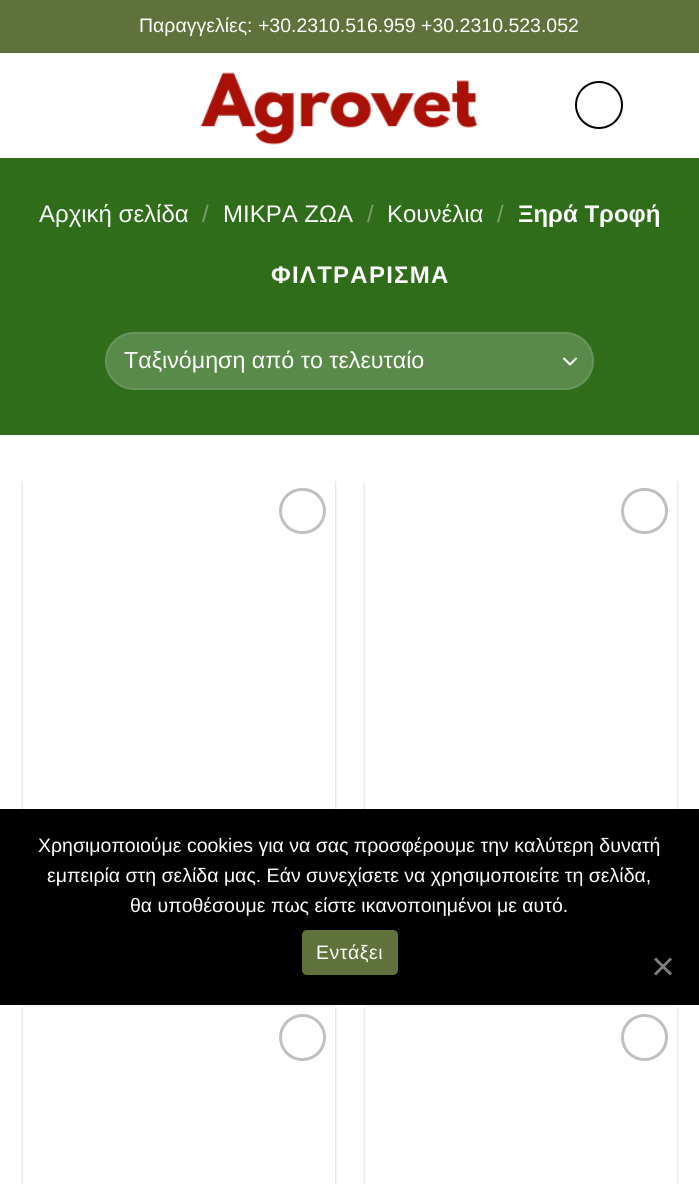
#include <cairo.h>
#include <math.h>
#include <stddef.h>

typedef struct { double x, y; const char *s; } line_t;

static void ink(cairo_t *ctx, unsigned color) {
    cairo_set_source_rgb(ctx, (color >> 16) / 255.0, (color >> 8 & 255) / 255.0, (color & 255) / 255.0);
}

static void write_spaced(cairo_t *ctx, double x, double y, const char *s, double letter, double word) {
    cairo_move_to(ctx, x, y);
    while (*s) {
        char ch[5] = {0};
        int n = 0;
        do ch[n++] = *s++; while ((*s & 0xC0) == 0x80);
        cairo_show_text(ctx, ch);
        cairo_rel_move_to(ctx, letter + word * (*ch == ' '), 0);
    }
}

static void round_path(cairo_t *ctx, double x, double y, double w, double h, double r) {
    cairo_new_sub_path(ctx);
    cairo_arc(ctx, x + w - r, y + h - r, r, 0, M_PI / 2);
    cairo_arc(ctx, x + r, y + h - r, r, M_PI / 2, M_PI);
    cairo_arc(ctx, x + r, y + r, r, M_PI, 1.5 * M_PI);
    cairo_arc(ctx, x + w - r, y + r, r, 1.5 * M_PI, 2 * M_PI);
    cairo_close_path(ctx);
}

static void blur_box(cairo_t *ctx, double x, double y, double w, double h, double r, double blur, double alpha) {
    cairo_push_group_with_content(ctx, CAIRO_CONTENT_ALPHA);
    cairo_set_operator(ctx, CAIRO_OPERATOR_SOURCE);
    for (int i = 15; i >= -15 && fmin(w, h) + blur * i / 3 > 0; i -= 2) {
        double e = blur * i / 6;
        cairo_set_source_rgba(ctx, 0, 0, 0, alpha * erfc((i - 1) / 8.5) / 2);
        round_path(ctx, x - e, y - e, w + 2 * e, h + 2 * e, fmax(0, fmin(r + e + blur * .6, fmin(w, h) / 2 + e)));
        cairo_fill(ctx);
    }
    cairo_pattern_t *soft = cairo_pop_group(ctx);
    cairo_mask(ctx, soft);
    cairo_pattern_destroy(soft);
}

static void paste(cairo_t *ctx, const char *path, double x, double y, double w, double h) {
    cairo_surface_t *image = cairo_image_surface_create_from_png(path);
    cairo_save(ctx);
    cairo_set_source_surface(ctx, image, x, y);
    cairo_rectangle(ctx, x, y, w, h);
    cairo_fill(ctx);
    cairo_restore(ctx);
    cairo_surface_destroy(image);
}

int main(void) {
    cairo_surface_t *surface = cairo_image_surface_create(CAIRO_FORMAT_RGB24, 699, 1184);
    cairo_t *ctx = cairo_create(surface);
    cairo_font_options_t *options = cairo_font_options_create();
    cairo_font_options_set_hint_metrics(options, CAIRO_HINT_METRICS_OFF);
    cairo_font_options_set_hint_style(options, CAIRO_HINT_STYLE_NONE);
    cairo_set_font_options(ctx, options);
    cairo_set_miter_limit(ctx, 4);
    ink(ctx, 0xFFFFFF);
    cairo_paint(ctx);
    ink(ctx, 0x5F723B);
    cairo_rectangle(ctx, 0, 0, 699, 53);
    cairo_fill(ctx);
    cairo_select_font_face(ctx, "Liberation Sans", CAIRO_FONT_SLANT_NORMAL, CAIRO_FONT_WEIGHT_NORMAL);
    cairo_set_font_size(ctx, 19.5);
    ink(ctx, 0xFFFFFF);
    cairo_move_to(ctx, 139, 32);
    cairo_show_text(ctx, "Παραγγελίες: +30.2310.516.959 +30.2310.523.052");
    paste(ctx, "media/1.png", 200, 72, 278, 73);
    cairo_arc(ctx, 599, 105, 23, 0, 2 * M_PI);
    ink(ctx, 0x000000);
    cairo_stroke(ctx);
    ink(ctx, 0x2F6D1B);
    cairo_rectangle(ctx, 0, 158, 699, 277);
    cairo_fill(ctx);
    cairo_set_font_size(ctx, 24);
    ink(ctx, 0xFFFFFF);
    cairo_move_to(ctx, 39, 222);
    cairo_show_text(ctx, "Αρχική σελίδα");
    ink(ctx, 0x78A06B);
    cairo_move_to(ctx, 202, 222);
    cairo_show_text(ctx, "/");
    ink(ctx, 0xFFFFFF);
    cairo_move_to(ctx, 223, 222);
    cairo_show_text(ctx, "ΜΙΚΡΑ ΖΩΑ");
    ink(ctx, 0x78A06B);
    cairo_move_to(ctx, 367, 222);
    cairo_show_text(ctx, "/");
    ink(ctx, 0xFFFFFF);
    cairo_move_to(ctx, 387, 222);
    cairo_show_text(ctx, "Κουνέλια");
    ink(ctx, 0x78A06B);
    cairo_move_to(ctx, 497, 222);
    cairo_show_text(ctx, "/");
    cairo_select_font_face(ctx, "Liberation Sans", CAIRO_FONT_SLANT_NORMAL, CAIRO_FONT_WEIGHT_BOLD);
    ink(ctx, 0xFFFFFF);
    cairo_move_to(ctx, 518, 222);
    cairo_show_text(ctx, "Ξηρά Τροφή");
    write_spaced(ctx, 271, 283, "ΦΙΛΤΡΑΡΙΣΜΑ", 1.25, 0);
    ink(ctx, 0x598A49);
    round_path(ctx, 105, 332, 489, 58, 29);
    cairo_fill(ctx);
    cairo_new_path(ctx);
    cairo_move_to(ctx, 564, 358.5);
    cairo_line_to(ctx, 570, 364.5);
    cairo_line_to(ctx, 576, 358.5);
    ink(ctx, 0xFFFFFF);
    cairo_set_line_cap(ctx, CAIRO_LINE_CAP_ROUND);
    cairo_set_line_join(ctx, CAIRO_LINE_JOIN_ROUND);
    cairo_stroke(ctx);
    round_path(ctx, 106, 333, 487, 56, 28);
    cairo_set_source_rgba(ctx, 1, 1, 1, 0.09);
    cairo_set_line_cap(ctx, CAIRO_LINE_CAP_BUTT);
    cairo_set_line_join(ctx, CAIRO_LINE_JOIN_MITER);
    cairo_stroke(ctx);
    cairo_select_font_face(ctx, "Liberation Sans", CAIRO_FONT_SLANT_NORMAL, CAIRO_FONT_WEIGHT_NORMAL);
    cairo_set_font_size(ctx, 23.25);
    ink(ctx, 0xFFFFFF);
    cairo_move_to(ctx, 124, 368);
    cairo_show_text(ctx, "Ταξινόμηση από το τελευταίο");
    ink(ctx, 0x000000);
    blur_box(ctx, 23, 482, 312, 496, 0, 1.5, 0.24);
    ink(ctx, 0xFFFFFF);
    cairo_rectangle(ctx, 23, 480, 312, 329);
    cairo_fill(ctx);
    round_path(ctx, 280.5, 489.5, 44, 43, 21.5);
    ink(ctx, 0xC0C0C0);
    cairo_set_line_width(ctx, 3);
    cairo_stroke(ctx);
    ink(ctx, 0x000000);
    blur_box(ctx, 365, 482, 312, 496, 0, 1.5, 0.24);
    ink(ctx, 0xFFFFFF);
    cairo_rectangle(ctx, 365, 480, 312, 329);
    cairo_fill(ctx);
    round_path(ctx, 622.5, 489.5, 44, 43, 21.5);
    ink(ctx, 0xC0C0C0);
    cairo_stroke(ctx);
    ink(ctx, 0x000000);
    blur_box(ctx, 23, 1008, 312, 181, 0, 1.5, 0.24);
    ink(ctx, 0xFFFFFF);
    cairo_rectangle(ctx, 23, 1007, 312, 177);
    cairo_fill(ctx);
    cairo_arc(ctx, 302.5, 1037.5, 22, 0, 2 * M_PI);
    ink(ctx, 0xC0C0C0);
    cairo_stroke(ctx);
    ink(ctx, 0x000000);
    blur_box(ctx, 365, 1008, 312, 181, 0, 1.5, 0.24);
    ink(ctx, 0xFFFFFF);
    cairo_rectangle(ctx, 365, 1007, 312, 177);
    cairo_fill(ctx);
    cairo_arc(ctx, 644.5, 1037.5, 22, 0, 2 * M_PI);
    ink(ctx, 0xC0C0C0);
    cairo_stroke(ctx);
    ink(ctx, 0x000000);
    cairo_rectangle(ctx, 0, 809, 699, 196);
    cairo_fill(ctx);
    cairo_set_font_size(ctx, 19.5);
    ink(ctx, 0xFFFFFF);
    {
        static const line_t items[] = {
            {38, 852, "Χρησιμοποιούμε cookies για να σας προσφέρουμε την καλύτερη δυνατή"},
            {47, 882, "εμπειρία στη σελίδα μας. Εάν συνεχίσετε να χρησιμοποιείτε τη σελίδα,"},
            {130, 912, "θα υποθέσουμε πως είστε ικανοποιημένοι με αυτό."},
        };
        for (size_t i = 0; i < sizeof items / sizeof *items; i++) {
            cairo_move_to(ctx, items[i].x, items[i].y);
            cairo_show_text(ctx, items[i].s);
        }
    }
    ink(ctx, 0x5F723B);
    round_path(ctx, 302, 930, 96, 45, 5);
    cairo_fill(ctx);
    ink(ctx, 0xFFFFFF);
    write_spaced(ctx, 316, 959, "Εντάξει", 0.5, 0);
    ink(ctx, 0x808080);
    cairo_new_path(ctx);
    cairo_move_to(ctx, 670, 957.5);
    cairo_line_to(ctx, 672, 959.5);
    cairo_line_to(ctx, 656, 975.5);
    cairo_line_to(ctx, 654, 973.5);
    cairo_close_path(ctx);
    cairo_fill(ctx);
    cairo_new_path(ctx);
    cairo_move_to(ctx, 654, 959.5);
    cairo_line_to(ctx, 656, 957.5);
    cairo_line_to(ctx, 672, 973.5);
    cairo_line_to(ctx, 670, 975.5);
    cairo_close_path(ctx);
    cairo_fill(ctx);
    cairo_surface_write_to_png(surface, "image.png");
    cairo_font_options_destroy(options);
    cairo_destroy(ctx);
    cairo_surface_destroy(surface);
    return 0;
}
